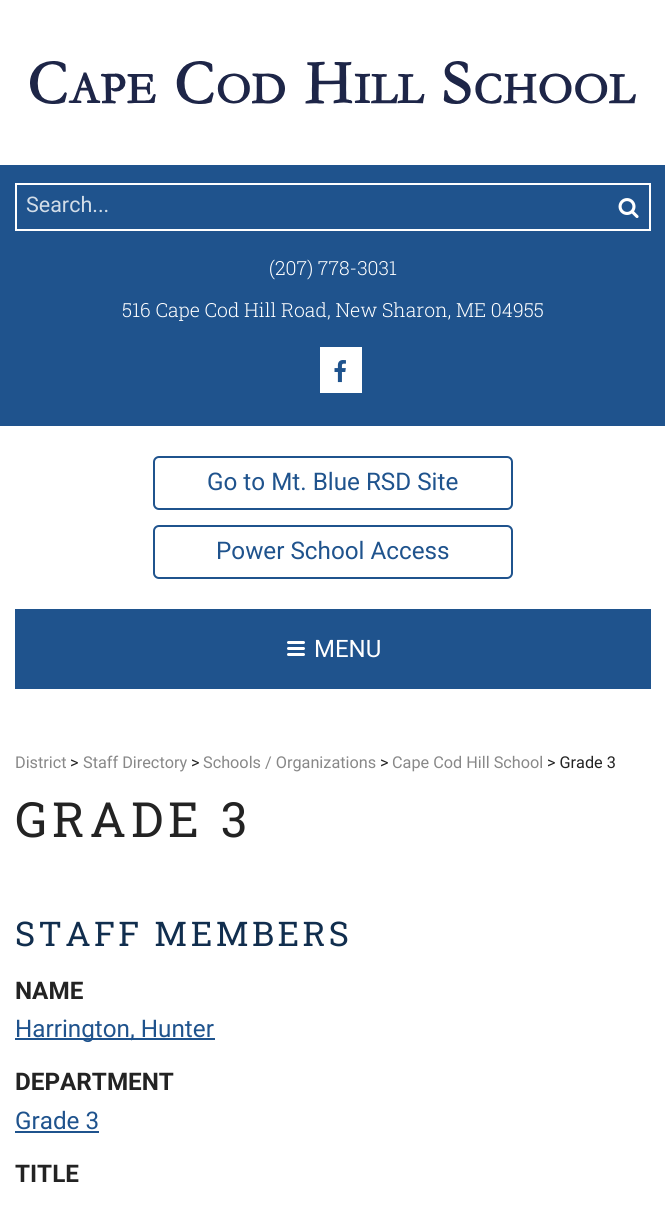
#include <cairo.h>
#include <math.h>
#include <stddef.h>


static void ink(cairo_t *ctx, unsigned color) {
    cairo_set_source_rgb(ctx, (color >> 16) / 255.0, (color >> 8 & 255) / 255.0, (color & 255) / 255.0);
}

static void write_spaced(cairo_t *ctx, double x, double y, const char *s, double letter, double word) {
    cairo_move_to(ctx, x, y);
    while (*s) {
        char ch[5] = {0};
        int n = 0;
        do ch[n++] = *s++; while ((*s & 0xC0) == 0x80);
        cairo_show_text(ctx, ch);
        cairo_rel_move_to(ctx, letter + word * (*ch == ' '), 0);
    }
}

static void round_path(cairo_t *ctx, double x, double y, double w, double h, double r) {
    cairo_new_sub_path(ctx);
    cairo_arc(ctx, x + w - r, y + h - r, r, 0, M_PI / 2);
    cairo_arc(ctx, x + r, y + h - r, r, M_PI / 2, M_PI);
    cairo_arc(ctx, x + r, y + r, r, M_PI, 1.5 * M_PI);
    cairo_arc(ctx, x + w - r, y + r, r, 1.5 * M_PI, 2 * M_PI);
    cairo_close_path(ctx);
}

static void paste(cairo_t *ctx, const char *path, double x, double y, double w, double h) {
    cairo_surface_t *image = cairo_image_surface_create_from_png(path);
    cairo_save(ctx);
    cairo_set_source_surface(ctx, image, x, y);
    cairo_rectangle(ctx, x, y, w, h);
    cairo_fill(ctx);
    cairo_restore(ctx);
    cairo_surface_destroy(image);
}

int main(void) {
    cairo_surface_t *surface = cairo_image_surface_create(CAIRO_FORMAT_RGB24, 665, 1208);
    cairo_t *ctx = cairo_create(surface);
    cairo_font_options_t *options = cairo_font_options_create();
    cairo_font_options_set_hint_metrics(options, CAIRO_HINT_METRICS_OFF);
    cairo_font_options_set_hint_style(options, CAIRO_HINT_STYLE_NONE);
    cairo_set_font_options(ctx, options);
    cairo_set_miter_limit(ctx, 4);
    ink(ctx, 0xFFFFFF);
    cairo_paint(ctx);
    paste(ctx, "media/1.png", 30, 61, 606, 43);
    ink(ctx, 0x1F538D);
    cairo_rectangle(ctx, 0, 165, 665, 261);
    cairo_fill(ctx);
    cairo_rectangle(ctx, 16, 184, 634, 46);
    ink(ctx, 0xFFFFFF);
    cairo_stroke(ctx);
    cairo_select_font_face(ctx, "Roboto", CAIRO_FONT_SLANT_NORMAL, CAIRO_FONT_WEIGHT_NORMAL);
    cairo_set_font_size(ctx, 21.5);
    ink(ctx, 0xD2DDE8);
    cairo_move_to(ctx, 26, 212);
    cairo_show_text(ctx, "Search...");
    paste(ctx, "media/2.png", 618, 198, 21, 20);
    cairo_select_font_face(ctx, "Roboto Slab Light", CAIRO_FONT_SLANT_NORMAL, CAIRO_FONT_WEIGHT_NORMAL);
    cairo_set_font_size(ctx, 19.4);
    ink(ctx, 0xFFFFFF);
    cairo_move_to(ctx, 269, 275);
    cairo_show_text(ctx, "(207) 778-3031");
    cairo_move_to(ctx, 122, 317);
    cairo_show_text(ctx, "516 Cape Cod Hill Road, New Sharon, ME 04955");
    cairo_rectangle(ctx, 320, 347, 42, 46);
    cairo_fill(ctx);
    paste(ctx, "media/3.png", 334, 360, 12, 23);
    round_path(ctx, 154, 457, 358, 52, 5);
    ink(ctx, 0x1F538D);
    cairo_stroke(ctx);
    cairo_select_font_face(ctx, "Roboto", CAIRO_FONT_SLANT_NORMAL, CAIRO_FONT_WEIGHT_NORMAL);
    cairo_set_font_size(ctx, 24.25);
    cairo_move_to(ctx, 207, 490);
    cairo_show_text(ctx, "Go to Mt. Blue RSD Site");
    round_path(ctx, 154, 526, 358, 52, 5);
    cairo_stroke(ctx);
    cairo_move_to(ctx, 216, 559);
    cairo_show_text(ctx, "Power School Access");
    cairo_rectangle(ctx, 15, 609, 636, 80);
    cairo_fill(ctx);
    ink(ctx, 0xFFFFFF);
    round_path(ctx, 287, 647, 18, 3, 1.5);
    cairo_fill(ctx);
    round_path(ctx, 287, 641, 18, 3, 1.5);
    cairo_fill(ctx);
    round_path(ctx, 287, 653, 18, 3, 1.5);
    cairo_fill(ctx);
    cairo_set_font_size(ctx, 24);
    cairo_move_to(ctx, 314, 657);
    cairo_show_text(ctx, "MENU");
    cairo_set_font_size(ctx, 16.25);
    ink(ctx, 0x888888);
    cairo_move_to(ctx, 15, 768);
    cairo_show_text(ctx, "District");
    ink(ctx, 0x232323);
    cairo_move_to(ctx, 70, 768);
    cairo_show_text(ctx, ">");
    ink(ctx, 0x888888);
    cairo_move_to(ctx, 83, 768);
    cairo_show_text(ctx, "Staff Directory");
    ink(ctx, 0x232323);
    cairo_move_to(ctx, 191, 768);
    cairo_show_text(ctx, ">");
    ink(ctx, 0x888888);
    cairo_move_to(ctx, 203, 768);
    cairo_show_text(ctx, "Schools / Organizations");
    ink(ctx, 0x232323);
    cairo_move_to(ctx, 380, 768);
    cairo_show_text(ctx, ">");
    ink(ctx, 0x888888);
    cairo_move_to(ctx, 392, 768);
    cairo_show_text(ctx, "Cape Cod Hill School");
    ink(ctx, 0x232323);
    cairo_move_to(ctx, 547, 768);
    cairo_show_text(ctx, "> Grade 3");
    cairo_select_font_face(ctx, "Roboto Slab", CAIRO_FONT_SLANT_NORMAL, CAIRO_FONT_WEIGHT_NORMAL);
    cairo_set_font_size(ctx, 48.5);
    write_spaced(ctx, 15, 837, "GRADE 3", 5, 0);
    cairo_set_font_size(ctx, 34);
    ink(ctx, 0x112E4E);
    write_spaced(ctx, 15, 946, "STAFF MEMBERS", 3.4, 0);
    cairo_select_font_face(ctx, "Roboto", CAIRO_FONT_SLANT_NORMAL, CAIRO_FONT_WEIGHT_BOLD);
    cairo_set_font_size(ctx, 24.25);
    ink(ctx, 0x232323);
    cairo_move_to(ctx, 15, 999);
    cairo_show_text(ctx, "NAME");
    ink(ctx, 0x1F538D);
    cairo_rectangle(ctx, 15, 1038, 200, 2);
    cairo_fill(ctx);
    cairo_select_font_face(ctx, "Roboto", CAIRO_FONT_SLANT_NORMAL, CAIRO_FONT_WEIGHT_NORMAL);
    cairo_move_to(ctx, 15, 1037);
    cairo_show_text(ctx, "Harrington, Hunter");
    cairo_select_font_face(ctx, "Roboto", CAIRO_FONT_SLANT_NORMAL, CAIRO_FONT_WEIGHT_BOLD);
    ink(ctx, 0x232323);
    cairo_move_to(ctx, 15, 1090);
    cairo_show_text(ctx, "DEPARTMENT");
    cairo_select_font_face(ctx, "Roboto", CAIRO_FONT_SLANT_NORMAL, CAIRO_FONT_WEIGHT_NORMAL);
    ink(ctx, 0x1F538D);
    cairo_move_to(ctx, 15, 1129);
    cairo_show_text(ctx, "Grade 3");
    cairo_rectangle(ctx, 15, 1131, 84, 2);
    cairo_fill(ctx);
    cairo_select_font_face(ctx, "Roboto", CAIRO_FONT_SLANT_NORMAL, CAIRO_FONT_WEIGHT_BOLD);
    ink(ctx, 0x232323);
    cairo_move_to(ctx, 15, 1182);
    cairo_show_text(ctx, "TITLE");
    cairo_surface_write_to_png(surface, "image.png");
    cairo_font_options_destroy(options);
    cairo_destroy(ctx);
    cairo_surface_destroy(surface);
    return 0;
}
